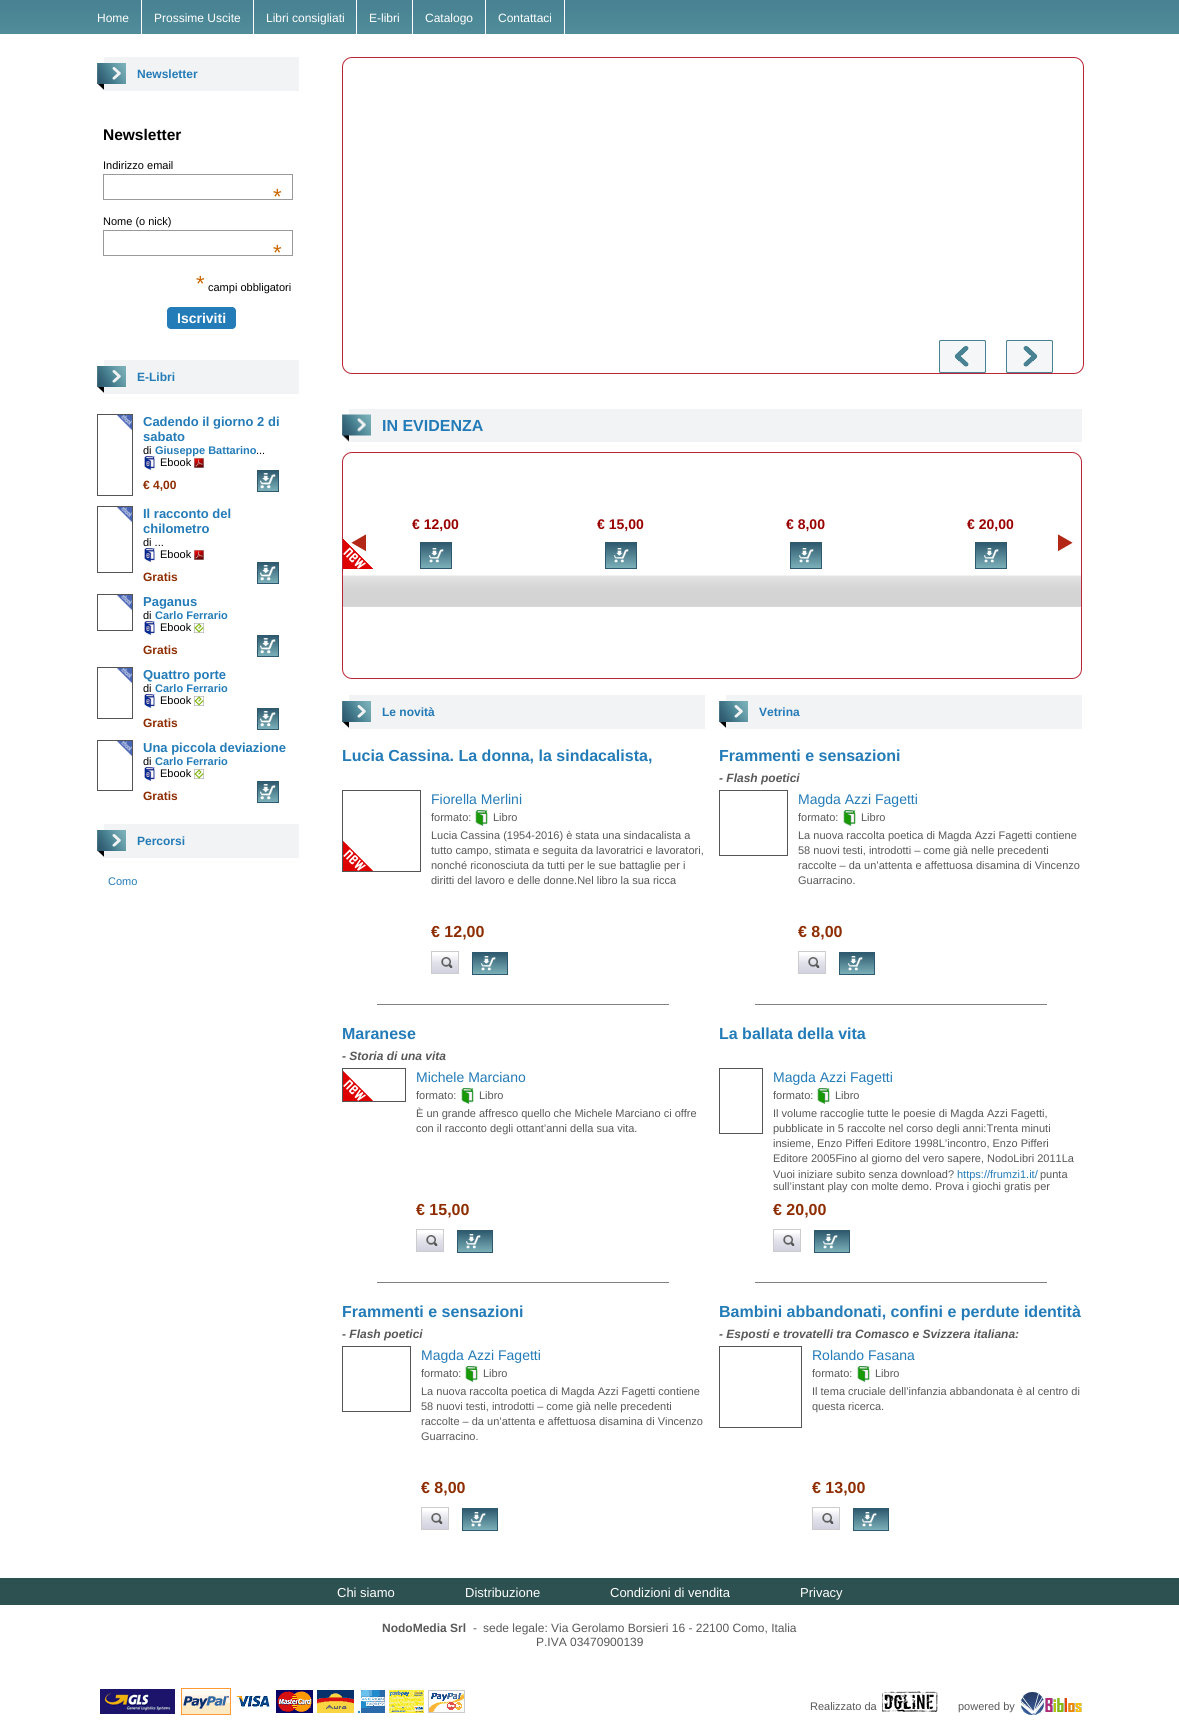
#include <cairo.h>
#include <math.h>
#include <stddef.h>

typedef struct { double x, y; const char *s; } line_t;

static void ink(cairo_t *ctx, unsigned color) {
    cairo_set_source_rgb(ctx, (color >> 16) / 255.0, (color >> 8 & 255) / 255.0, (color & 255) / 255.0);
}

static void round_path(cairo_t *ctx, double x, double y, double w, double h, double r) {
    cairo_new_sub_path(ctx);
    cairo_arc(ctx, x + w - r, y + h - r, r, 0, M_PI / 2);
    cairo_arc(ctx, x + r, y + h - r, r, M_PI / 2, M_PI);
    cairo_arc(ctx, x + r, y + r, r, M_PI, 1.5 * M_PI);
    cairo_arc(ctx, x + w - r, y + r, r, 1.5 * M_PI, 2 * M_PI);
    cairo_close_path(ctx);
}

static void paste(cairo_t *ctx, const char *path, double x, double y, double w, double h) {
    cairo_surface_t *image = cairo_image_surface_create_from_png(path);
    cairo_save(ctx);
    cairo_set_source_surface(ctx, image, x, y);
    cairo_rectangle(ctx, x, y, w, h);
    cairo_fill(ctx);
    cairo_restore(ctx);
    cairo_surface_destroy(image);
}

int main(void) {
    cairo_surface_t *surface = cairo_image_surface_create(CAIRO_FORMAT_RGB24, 1179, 1725);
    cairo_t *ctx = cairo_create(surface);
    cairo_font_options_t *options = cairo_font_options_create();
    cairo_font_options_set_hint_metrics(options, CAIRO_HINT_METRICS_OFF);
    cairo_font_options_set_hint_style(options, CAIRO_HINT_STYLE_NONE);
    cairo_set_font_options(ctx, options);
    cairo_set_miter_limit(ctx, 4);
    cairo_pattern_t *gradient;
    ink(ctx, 0xFFFFFF);
    cairo_paint(ctx);
    paste(ctx, "media/1.png", 0, 0, 1179, 34);
    ink(ctx, 0xFFFFFF);
    cairo_rectangle(ctx, 141, 0, 1, 37);
    cairo_fill(ctx);
    cairo_select_font_face(ctx, "Liberation Sans", CAIRO_FONT_SLANT_NORMAL, CAIRO_FONT_WEIGHT_NORMAL);
    cairo_set_font_size(ctx, 12);
    cairo_move_to(ctx, 97, 22);
    cairo_show_text(ctx, "Home");
    cairo_rectangle(ctx, 253, 0, 1, 37);
    cairo_fill(ctx);
    cairo_move_to(ctx, 154, 22);
    cairo_show_text(ctx, "Prossime Uscite");
    cairo_rectangle(ctx, 356, 0, 1, 37);
    cairo_fill(ctx);
    cairo_move_to(ctx, 266, 22);
    cairo_show_text(ctx, "Libri consigliati");
    cairo_rectangle(ctx, 412, 0, 1, 37);
    cairo_fill(ctx);
    cairo_move_to(ctx, 369, 22);
    cairo_show_text(ctx, "E-libri");
    cairo_rectangle(ctx, 485, 0, 1, 37);
    cairo_fill(ctx);
    cairo_move_to(ctx, 425, 22);
    cairo_show_text(ctx, "Catalogo");
    cairo_rectangle(ctx, 564, 0, 1, 37);
    cairo_fill(ctx);
    cairo_move_to(ctx, 498, 22);
    cairo_show_text(ctx, "Contattaci");
    ink(ctx, 0xF2F3F4);
    cairo_rectangle(ctx, 104, 57, 195, 34);
    cairo_fill(ctx);
    paste(ctx, "media/2.png", 97, 57, 29, 34);
    cairo_select_font_face(ctx, "Liberation Sans", CAIRO_FONT_SLANT_NORMAL, CAIRO_FONT_WEIGHT_BOLD);
    ink(ctx, 0x237BB8);
    cairo_move_to(ctx, 137, 78);
    cairo_show_text(ctx, "Newsletter");
    cairo_set_font_size(ctx, 15.5);
    ink(ctx, 0x000000);
    cairo_move_to(ctx, 103, 140);
    cairo_show_text(ctx, "Newsletter");
    cairo_select_font_face(ctx, "Liberation Sans", CAIRO_FONT_SLANT_NORMAL, CAIRO_FONT_WEIGHT_NORMAL);
    cairo_set_font_size(ctx, 11);
    cairo_move_to(ctx, 103, 169);
    cairo_show_text(ctx, "Indirizzo email");
    cairo_rectangle(ctx, 103.5, 174.5, 189, 25);
    ink(ctx, 0x999999);
    cairo_set_line_width(ctx, 1);
    cairo_stroke(ctx);
    cairo_set_font_size(ctx, 22);
    ink(ctx, 0xCC6600);
    cairo_move_to(ctx, 273, 204);
    cairo_show_text(ctx, "*");
    cairo_set_font_size(ctx, 11);
    ink(ctx, 0x000000);
    cairo_move_to(ctx, 103, 225);
    cairo_show_text(ctx, "Nome (o nick)");
    cairo_rectangle(ctx, 103.5, 230.5, 189, 25);
    ink(ctx, 0x999999);
    cairo_stroke(ctx);
    cairo_set_font_size(ctx, 22);
    ink(ctx, 0xCC6600);
    cairo_move_to(ctx, 273, 260);
    cairo_show_text(ctx, "*");
    cairo_move_to(ctx, 196, 291);
    cairo_show_text(ctx, "*");
    cairo_set_font_size(ctx, 11);
    ink(ctx, 0x000000);
    cairo_move_to(ctx, 208, 291);
    cairo_show_text(ctx, "campi obbligatori");
    ink(ctx, 0x237BB8);
    round_path(ctx, 167, 307, 69, 22, 4);
    cairo_fill(ctx);
    cairo_select_font_face(ctx, "Liberation Sans", CAIRO_FONT_SLANT_NORMAL, CAIRO_FONT_WEIGHT_BOLD);
    cairo_set_font_size(ctx, 14);
    ink(ctx, 0xFFFFFF);
    cairo_move_to(ctx, 177, 323);
    cairo_show_text(ctx, "Iscriviti");
    ink(ctx, 0xF2F3F4);
    cairo_rectangle(ctx, 104, 360, 195, 34);
    cairo_fill(ctx);
    paste(ctx, "media/2.png", 97, 360, 29, 34);
    cairo_set_font_size(ctx, 12);
    ink(ctx, 0x237BB8);
    cairo_move_to(ctx, 137, 381);
    cairo_show_text(ctx, "E-Libri");
    cairo_rectangle(ctx, 97.5, 414.5, 35, 81);
    ink(ctx, 0x555555);
    cairo_stroke(ctx);
    paste(ctx, "media/3.png", 117, 415, 15, 15);
    cairo_set_font_size(ctx, 13);
    ink(ctx, 0x237BB8);
    cairo_move_to(ctx, 143, 426);
    cairo_show_text(ctx, "Cadendo il giorno 2 di");
    cairo_move_to(ctx, 143, 441);
    cairo_show_text(ctx, "sabato");
    cairo_select_font_face(ctx, "Liberation Sans", CAIRO_FONT_SLANT_NORMAL, CAIRO_FONT_WEIGHT_NORMAL);
    cairo_set_font_size(ctx, 11);
    ink(ctx, 0x000000);
    cairo_move_to(ctx, 143, 454);
    cairo_show_text(ctx, "di");
    cairo_select_font_face(ctx, "Liberation Sans", CAIRO_FONT_SLANT_NORMAL, CAIRO_FONT_WEIGHT_BOLD);
    ink(ctx, 0x237BB8);
    cairo_move_to(ctx, 155, 454);
    cairo_show_text(ctx, "Giuseppe Battarino");
    cairo_select_font_face(ctx, "Liberation Sans", CAIRO_FONT_SLANT_NORMAL, CAIRO_FONT_WEIGHT_NORMAL);
    ink(ctx, 0x000000);
    cairo_move_to(ctx, 256, 454);
    cairo_show_text(ctx, "...");
    paste(ctx, "media/4.png", 144, 456, 11, 14);
    cairo_move_to(ctx, 160, 466);
    cairo_show_text(ctx, "Ebook");
    paste(ctx, "media/5.png", 194, 458, 10, 10);
    cairo_select_font_face(ctx, "Liberation Sans", CAIRO_FONT_SLANT_NORMAL, CAIRO_FONT_WEIGHT_BOLD);
    cairo_set_font_size(ctx, 12);
    ink(ctx, 0x8E2D01);
    cairo_move_to(ctx, 143, 489);
    cairo_show_text(ctx, "€ 4,00");
    gradient = cairo_pattern_create_linear(268, 471, 268, 491);
    cairo_pattern_add_color_stop_rgba(gradient, 0, 0.18, 0.349, 0.431, 1);
    cairo_pattern_add_color_stop_rgba(gradient, 1, 0.482, 0.69, 0.722, 1);
    cairo_set_source(ctx, gradient);
    cairo_pattern_destroy(gradient);
    cairo_rectangle(ctx, 258, 471, 20, 20);
    cairo_fill(ctx);
    cairo_rectangle(ctx, 257.5, 470.5, 21, 21);
    ink(ctx, 0x2E596E);
    cairo_stroke(ctx);
    paste(ctx, "media/6.png", 260, 473, 16, 16);
    cairo_rectangle(ctx, 97.5, 506.5, 35, 66);
    ink(ctx, 0x555555);
    cairo_stroke(ctx);
    paste(ctx, "media/3.png", 117, 507, 15, 15);
    cairo_set_font_size(ctx, 13);
    ink(ctx, 0x237BB8);
    cairo_move_to(ctx, 143, 518);
    cairo_show_text(ctx, "Il racconto del");
    cairo_move_to(ctx, 143, 533);
    cairo_show_text(ctx, "chilometro");
    cairo_select_font_face(ctx, "Liberation Sans", CAIRO_FONT_SLANT_NORMAL, CAIRO_FONT_WEIGHT_NORMAL);
    cairo_set_font_size(ctx, 11);
    ink(ctx, 0x000000);
    cairo_move_to(ctx, 143, 546);
    cairo_show_text(ctx, "di ...");
    paste(ctx, "media/4.png", 144, 548, 11, 14);
    cairo_move_to(ctx, 160, 558);
    cairo_show_text(ctx, "Ebook");
    paste(ctx, "media/5.png", 194, 550, 10, 10);
    cairo_select_font_face(ctx, "Liberation Sans", CAIRO_FONT_SLANT_NORMAL, CAIRO_FONT_WEIGHT_BOLD);
    cairo_set_font_size(ctx, 12);
    ink(ctx, 0x8E2D01);
    cairo_move_to(ctx, 143, 581);
    cairo_show_text(ctx, "Gratis");
    gradient = cairo_pattern_create_linear(268, 563, 268, 583);
    cairo_pattern_add_color_stop_rgba(gradient, 0, 0.18, 0.349, 0.431, 1);
    cairo_pattern_add_color_stop_rgba(gradient, 1, 0.482, 0.69, 0.722, 1);
    cairo_set_source(ctx, gradient);
    cairo_pattern_destroy(gradient);
    cairo_rectangle(ctx, 258, 563, 20, 20);
    cairo_fill(ctx);
    cairo_rectangle(ctx, 257.5, 562.5, 21, 21);
    ink(ctx, 0x2E596E);
    cairo_stroke(ctx);
    paste(ctx, "media/6.png", 260, 565, 16, 16);
    cairo_rectangle(ctx, 97.5, 594.5, 35, 36);
    ink(ctx, 0x555555);
    cairo_stroke(ctx);
    paste(ctx, "media/3.png", 117, 595, 15, 15);
    cairo_set_font_size(ctx, 13);
    ink(ctx, 0x237BB8);
    cairo_move_to(ctx, 143, 606);
    cairo_show_text(ctx, "Paganus");
    cairo_select_font_face(ctx, "Liberation Sans", CAIRO_FONT_SLANT_NORMAL, CAIRO_FONT_WEIGHT_NORMAL);
    cairo_set_font_size(ctx, 11);
    ink(ctx, 0x000000);
    cairo_move_to(ctx, 143, 619);
    cairo_show_text(ctx, "di");
    cairo_select_font_face(ctx, "Liberation Sans", CAIRO_FONT_SLANT_NORMAL, CAIRO_FONT_WEIGHT_BOLD);
    ink(ctx, 0x237BB8);
    cairo_move_to(ctx, 155, 619);
    cairo_show_text(ctx, "Carlo Ferrario");
    paste(ctx, "media/4.png", 144, 621, 11, 14);
    cairo_select_font_face(ctx, "Liberation Sans", CAIRO_FONT_SLANT_NORMAL, CAIRO_FONT_WEIGHT_NORMAL);
    ink(ctx, 0x000000);
    cairo_move_to(ctx, 160, 631);
    cairo_show_text(ctx, "Ebook");
    paste(ctx, "media/7.png", 194, 623, 10, 10);
    cairo_select_font_face(ctx, "Liberation Sans", CAIRO_FONT_SLANT_NORMAL, CAIRO_FONT_WEIGHT_BOLD);
    cairo_set_font_size(ctx, 12);
    ink(ctx, 0x8E2D01);
    cairo_move_to(ctx, 143, 654);
    cairo_show_text(ctx, "Gratis");
    gradient = cairo_pattern_create_linear(268, 636, 268, 656);
    cairo_pattern_add_color_stop_rgba(gradient, 0, 0.18, 0.349, 0.431, 1);
    cairo_pattern_add_color_stop_rgba(gradient, 1, 0.482, 0.69, 0.722, 1);
    cairo_set_source(ctx, gradient);
    cairo_pattern_destroy(gradient);
    cairo_rectangle(ctx, 258, 636, 20, 20);
    cairo_fill(ctx);
    cairo_rectangle(ctx, 257.5, 635.5, 21, 21);
    ink(ctx, 0x2E596E);
    cairo_stroke(ctx);
    paste(ctx, "media/6.png", 260, 638, 16, 16);
    cairo_rectangle(ctx, 97.5, 667.5, 35, 51);
    ink(ctx, 0x555555);
    cairo_stroke(ctx);
    paste(ctx, "media/3.png", 117, 668, 15, 15);
    cairo_set_font_size(ctx, 13);
    ink(ctx, 0x237BB8);
    cairo_move_to(ctx, 143, 679);
    cairo_show_text(ctx, "Quattro porte");
    cairo_select_font_face(ctx, "Liberation Sans", CAIRO_FONT_SLANT_NORMAL, CAIRO_FONT_WEIGHT_NORMAL);
    cairo_set_font_size(ctx, 11);
    ink(ctx, 0x000000);
    cairo_move_to(ctx, 143, 692);
    cairo_show_text(ctx, "di");
    cairo_select_font_face(ctx, "Liberation Sans", CAIRO_FONT_SLANT_NORMAL, CAIRO_FONT_WEIGHT_BOLD);
    ink(ctx, 0x237BB8);
    cairo_move_to(ctx, 155, 692);
    cairo_show_text(ctx, "Carlo Ferrario");
    paste(ctx, "media/4.png", 144, 694, 11, 14);
    cairo_select_font_face(ctx, "Liberation Sans", CAIRO_FONT_SLANT_NORMAL, CAIRO_FONT_WEIGHT_NORMAL);
    ink(ctx, 0x000000);
    cairo_move_to(ctx, 160, 704);
    cairo_show_text(ctx, "Ebook");
    paste(ctx, "media/7.png", 194, 696, 10, 10);
    cairo_select_font_face(ctx, "Liberation Sans", CAIRO_FONT_SLANT_NORMAL, CAIRO_FONT_WEIGHT_BOLD);
    cairo_set_font_size(ctx, 12);
    ink(ctx, 0x8E2D01);
    cairo_move_to(ctx, 143, 727);
    cairo_show_text(ctx, "Gratis");
    gradient = cairo_pattern_create_linear(268, 709, 268, 729);
    cairo_pattern_add_color_stop_rgba(gradient, 0, 0.18, 0.349, 0.431, 1);
    cairo_pattern_add_color_stop_rgba(gradient, 1, 0.482, 0.69, 0.722, 1);
    cairo_set_source(ctx, gradient);
    cairo_pattern_destroy(gradient);
    cairo_rectangle(ctx, 258, 709, 20, 20);
    cairo_fill(ctx);
    cairo_rectangle(ctx, 257.5, 708.5, 21, 21);
    ink(ctx, 0x2E596E);
    cairo_stroke(ctx);
    paste(ctx, "media/6.png", 260, 711, 16, 16);
    cairo_rectangle(ctx, 97.5, 740.5, 35, 50);
    ink(ctx, 0x555555);
    cairo_stroke(ctx);
    paste(ctx, "media/3.png", 117, 741, 15, 15);
    cairo_set_font_size(ctx, 13);
    ink(ctx, 0x237BB8);
    cairo_move_to(ctx, 143, 752);
    cairo_show_text(ctx, "Una piccola deviazione");
    cairo_select_font_face(ctx, "Liberation Sans", CAIRO_FONT_SLANT_NORMAL, CAIRO_FONT_WEIGHT_NORMAL);
    cairo_set_font_size(ctx, 11);
    ink(ctx, 0x000000);
    cairo_move_to(ctx, 143, 765);
    cairo_show_text(ctx, "di");
    cairo_select_font_face(ctx, "Liberation Sans", CAIRO_FONT_SLANT_NORMAL, CAIRO_FONT_WEIGHT_BOLD);
    ink(ctx, 0x237BB8);
    cairo_move_to(ctx, 155, 765);
    cairo_show_text(ctx, "Carlo Ferrario");
    paste(ctx, "media/4.png", 144, 767, 11, 14);
    cairo_select_font_face(ctx, "Liberation Sans", CAIRO_FONT_SLANT_NORMAL, CAIRO_FONT_WEIGHT_NORMAL);
    ink(ctx, 0x000000);
    cairo_move_to(ctx, 160, 777);
    cairo_show_text(ctx, "Ebook");
    paste(ctx, "media/7.png", 194, 769, 10, 10);
    cairo_select_font_face(ctx, "Liberation Sans", CAIRO_FONT_SLANT_NORMAL, CAIRO_FONT_WEIGHT_BOLD);
    cairo_set_font_size(ctx, 12);
    ink(ctx, 0x8E2D01);
    cairo_move_to(ctx, 143, 800);
    cairo_show_text(ctx, "Gratis");
    gradient = cairo_pattern_create_linear(268, 782, 268, 802);
    cairo_pattern_add_color_stop_rgba(gradient, 0, 0.18, 0.349, 0.431, 1);
    cairo_pattern_add_color_stop_rgba(gradient, 1, 0.482, 0.69, 0.722, 1);
    cairo_set_source(ctx, gradient);
    cairo_pattern_destroy(gradient);
    cairo_rectangle(ctx, 258, 782, 20, 20);
    cairo_fill(ctx);
    cairo_rectangle(ctx, 257.5, 781.5, 21, 21);
    ink(ctx, 0x2E596E);
    cairo_stroke(ctx);
    paste(ctx, "media/6.png", 260, 784, 16, 16);
    ink(ctx, 0xF2F3F4);
    cairo_rectangle(ctx, 104, 824, 195, 34);
    cairo_fill(ctx);
    paste(ctx, "media/2.png", 97, 824, 29, 34);
    ink(ctx, 0x237BB8);
    cairo_move_to(ctx, 137, 845);
    cairo_show_text(ctx, "Percorsi");
    cairo_select_font_face(ctx, "Liberation Sans", CAIRO_FONT_SLANT_NORMAL, CAIRO_FONT_WEIGHT_NORMAL);
    cairo_set_font_size(ctx, 11);
    cairo_move_to(ctx, 108, 885);
    cairo_show_text(ctx, "Como");
    round_path(ctx, 342.5, 57.5, 741, 316, 9.5);
    ink(ctx, 0xB92534);
    cairo_stroke(ctx);
    ink(ctx, 0x498292);
    round_path(ctx, 939, 340, 47, 33, 2);
    cairo_fill(ctx);
    paste(ctx, "media/8.png", 940, 341, 45, 31);
    round_path(ctx, 939.5, 340.5, 46, 32, 1.5);
    cairo_stroke(ctx);
    round_path(ctx, 1006, 340, 47, 33, 2);
    cairo_fill(ctx);
    paste(ctx, "media/9.png", 1007, 341, 45, 31);
    round_path(ctx, 1006.5, 340.5, 46, 32, 1.5);
    cairo_stroke(ctx);
    ink(ctx, 0xF2F3F4);
    cairo_rectangle(ctx, 349, 409, 733, 33);
    cairo_fill(ctx);
    paste(ctx, "media/10.png", 342, 409, 29, 33);
    cairo_select_font_face(ctx, "Liberation Sans", CAIRO_FONT_SLANT_NORMAL, CAIRO_FONT_WEIGHT_BOLD);
    cairo_set_font_size(ctx, 16);
    ink(ctx, 0x237BB8);
    cairo_move_to(ctx, 382, 431);
    cairo_show_text(ctx, "IN EVIDENZA");
    paste(ctx, "media/11.png", 343, 575, 738, 32);
    round_path(ctx, 342.5, 452.5, 739, 226, 9.5);
    ink(ctx, 0xB92534);
    cairo_stroke(ctx);
    cairo_set_font_size(ctx, 14);
    ink(ctx, 0x990000);
    cairo_move_to(ctx, 412, 529);
    cairo_show_text(ctx, "€ 12,00");
    paste(ctx, "media/12.png", 343, 539, 30, 30);
    gradient = cairo_pattern_create_linear(436, 543, 436, 568);
    cairo_pattern_add_color_stop_rgba(gradient, 0, 0.18, 0.349, 0.431, 1);
    cairo_pattern_add_color_stop_rgba(gradient, 1, 0.482, 0.69, 0.722, 1);
    cairo_set_source(ctx, gradient);
    cairo_pattern_destroy(gradient);
    cairo_rectangle(ctx, 421, 543, 30, 25);
    cairo_fill(ctx);
    cairo_rectangle(ctx, 420.5, 542.5, 31, 26);
    ink(ctx, 0x2E596E);
    cairo_stroke(ctx);
    paste(ctx, "media/13.png", 429, 548, 15, 15);
    ink(ctx, 0x990000);
    cairo_move_to(ctx, 597, 529);
    cairo_show_text(ctx, "€ 15,00");
    paste(ctx, "media/14.png", 343, 539, 30, 30);
    gradient = cairo_pattern_create_linear(621, 543, 621, 568);
    cairo_pattern_add_color_stop_rgba(gradient, 0, 0.18, 0.349, 0.431, 1);
    cairo_pattern_add_color_stop_rgba(gradient, 1, 0.482, 0.69, 0.722, 1);
    cairo_set_source(ctx, gradient);
    cairo_pattern_destroy(gradient);
    cairo_rectangle(ctx, 606, 543, 30, 25);
    cairo_fill(ctx);
    cairo_rectangle(ctx, 605.5, 542.5, 31, 26);
    ink(ctx, 0x2E596E);
    cairo_stroke(ctx);
    paste(ctx, "media/13.png", 614, 548, 15, 15);
    ink(ctx, 0x990000);
    cairo_move_to(ctx, 786, 529);
    cairo_show_text(ctx, "€ 8,00");
    gradient = cairo_pattern_create_linear(806, 543, 806, 568);
    cairo_pattern_add_color_stop_rgba(gradient, 0, 0.18, 0.349, 0.431, 1);
    cairo_pattern_add_color_stop_rgba(gradient, 1, 0.482, 0.69, 0.722, 1);
    cairo_set_source(ctx, gradient);
    cairo_pattern_destroy(gradient);
    cairo_rectangle(ctx, 791, 543, 30, 25);
    cairo_fill(ctx);
    cairo_rectangle(ctx, 790.5, 542.5, 31, 26);
    ink(ctx, 0x2E596E);
    cairo_stroke(ctx);
    paste(ctx, "media/15.png", 799, 548, 15, 15);
    ink(ctx, 0x990000);
    cairo_move_to(ctx, 967, 529);
    cairo_show_text(ctx, "€ 20,00");
    gradient = cairo_pattern_create_linear(991, 543, 991, 568);
    cairo_pattern_add_color_stop_rgba(gradient, 0, 0.18, 0.349, 0.431, 1);
    cairo_pattern_add_color_stop_rgba(gradient, 1, 0.482, 0.69, 0.722, 1);
    cairo_set_source(ctx, gradient);
    cairo_pattern_destroy(gradient);
    cairo_rectangle(ctx, 976, 543, 30, 25);
    cairo_fill(ctx);
    cairo_rectangle(ctx, 975.5, 542.5, 31, 26);
    ink(ctx, 0x2E596E);
    cairo_stroke(ctx);
    paste(ctx, "media/15.png", 984, 548, 15, 15);
    paste(ctx, "media/16.png", 351, 534, 15, 18);
    paste(ctx, "media/17.png", 1058, 534, 15, 18);
    ink(ctx, 0xF2F3F4);
    cairo_rectangle(ctx, 349, 695, 356, 34);
    cairo_fill(ctx);
    paste(ctx, "media/2.png", 342, 695, 29, 34);
    cairo_set_font_size(ctx, 12);
    ink(ctx, 0x237BB8);
    cairo_move_to(ctx, 382, 716);
    cairo_show_text(ctx, "Le novità");
    cairo_set_font_size(ctx, 16);
    cairo_move_to(ctx, 342, 761);
    cairo_show_text(ctx, "Lucia Cassina. La donna, la sindacalista,");
    cairo_rectangle(ctx, 342.5, 790.5, 78, 81);
    ink(ctx, 0x555555);
    cairo_stroke(ctx);
    paste(ctx, "media/12.png", 343, 841, 30, 30);
    cairo_select_font_face(ctx, "Liberation Sans", CAIRO_FONT_SLANT_NORMAL, CAIRO_FONT_WEIGHT_NORMAL);
    cairo_set_font_size(ctx, 14);
    ink(ctx, 0x237BB8);
    cairo_move_to(ctx, 431, 804);
    cairo_show_text(ctx, "Fiorella Merlini");
    cairo_set_font_size(ctx, 11);
    ink(ctx, 0x585858);
    cairo_move_to(ctx, 431, 821);
    cairo_show_text(ctx, "formato:");
    paste(ctx, "media/18.png", 475, 810, 13, 16);
    {
        static const line_t items[] = {
            {493, 821, "Libro"},
            {431, 839, "Lucia Cassina (1954-2016) è stata una sindacalista a"},
            {431, 854, "tutto campo, stimata e seguita da lavoratrici e lavoratori,"},
            {431, 869, "nonché riconosciuta da tutti per le sue battaglie per i"},
            {431, 884, "diritti del lavoro e delle donne.Nel libro la sua ricca"},
        };
        for (size_t i = 0; i < sizeof items / sizeof *items; i++) {
            cairo_move_to(ctx, items[i].x, items[i].y);
            cairo_show_text(ctx, items[i].s);
        }
    }
    cairo_select_font_face(ctx, "Liberation Sans", CAIRO_FONT_SLANT_NORMAL, CAIRO_FONT_WEIGHT_BOLD);
    cairo_set_font_size(ctx, 16);
    ink(ctx, 0x8E2D01);
    cairo_move_to(ctx, 431, 937);
    cairo_show_text(ctx, "€ 12,00");
    paste(ctx, "media/19.png", 432, 955, 26, 18);
    cairo_rectangle(ctx, 431.5, 951.5, 27, 22);
    ink(ctx, 0xCCCCCC);
    cairo_stroke(ctx);
    paste(ctx, "media/20.png", 441, 957, 12, 11);
    gradient = cairo_pattern_create_linear(490, 953, 490, 974);
    cairo_pattern_add_color_stop_rgba(gradient, 0, 0.18, 0.349, 0.431, 1);
    cairo_pattern_add_color_stop_rgba(gradient, 1, 0.482, 0.69, 0.722, 1);
    cairo_set_source(ctx, gradient);
    cairo_pattern_destroy(gradient);
    cairo_rectangle(ctx, 473, 953, 34, 21);
    cairo_fill(ctx);
    cairo_rectangle(ctx, 472.5, 952.5, 35, 22);
    ink(ctx, 0x2E596E);
    cairo_stroke(ctx);
    paste(ctx, "media/21.png", 481, 956, 15, 15);
    ink(ctx, 0x808080);
    cairo_rectangle(ctx, 377, 1004, 292, 1);
    cairo_fill(ctx);
    ink(ctx, 0x237BB8);
    cairo_move_to(ctx, 342, 1039);
    cairo_show_text(ctx, "Maranese");
    cairo_select_font_face(ctx, "Liberation Sans", CAIRO_FONT_SLANT_ITALIC, CAIRO_FONT_WEIGHT_BOLD);
    cairo_set_font_size(ctx, 12);
    ink(ctx, 0x585858);
    cairo_move_to(ctx, 342, 1060);
    cairo_show_text(ctx, "- Storia di una vita");
    cairo_rectangle(ctx, 342.5, 1068.5, 63, 33);
    ink(ctx, 0x555555);
    cairo_stroke(ctx);
    paste(ctx, "media/12.png", 343, 1071, 30, 30);
    cairo_select_font_face(ctx, "Liberation Sans", CAIRO_FONT_SLANT_NORMAL, CAIRO_FONT_WEIGHT_NORMAL);
    cairo_set_font_size(ctx, 14);
    ink(ctx, 0x237BB8);
    cairo_move_to(ctx, 416, 1082);
    cairo_show_text(ctx, "Michele Marciano");
    cairo_set_font_size(ctx, 11);
    ink(ctx, 0x585858);
    cairo_move_to(ctx, 416, 1099);
    cairo_show_text(ctx, "formato:");
    paste(ctx, "media/18.png", 461, 1088, 13, 16);
    {
        static const line_t items[] = {
            {479, 1099, "Libro"},
            {416, 1117, "È un grande affresco quello che Michele Marciano ci offre"},
            {416, 1132, "con il racconto degli ottant’anni della sua vita."},
        };
        for (size_t i = 0; i < sizeof items / sizeof *items; i++) {
            cairo_move_to(ctx, items[i].x, items[i].y);
            cairo_show_text(ctx, items[i].s);
        }
    }
    cairo_select_font_face(ctx, "Liberation Sans", CAIRO_FONT_SLANT_NORMAL, CAIRO_FONT_WEIGHT_BOLD);
    cairo_set_font_size(ctx, 16);
    ink(ctx, 0x8E2D01);
    cairo_move_to(ctx, 416, 1215);
    cairo_show_text(ctx, "€ 15,00");
    paste(ctx, "media/19.png", 417, 1233, 26, 18);
    cairo_rectangle(ctx, 416.5, 1229.5, 27, 22);
    ink(ctx, 0xCCCCCC);
    cairo_stroke(ctx);
    paste(ctx, "media/22.png", 426, 1235, 12, 11);
    gradient = cairo_pattern_create_linear(475, 1231, 475, 1252);
    cairo_pattern_add_color_stop_rgba(gradient, 0, 0.18, 0.349, 0.431, 1);
    cairo_pattern_add_color_stop_rgba(gradient, 1, 0.482, 0.69, 0.722, 1);
    cairo_set_source(ctx, gradient);
    cairo_pattern_destroy(gradient);
    cairo_rectangle(ctx, 458, 1231, 34, 21);
    cairo_fill(ctx);
    cairo_rectangle(ctx, 457.5, 1230.5, 35, 22);
    ink(ctx, 0x2E596E);
    cairo_stroke(ctx);
    paste(ctx, "media/21.png", 466, 1234, 15, 15);
    ink(ctx, 0x808080);
    cairo_rectangle(ctx, 377, 1282, 292, 1);
    cairo_fill(ctx);
    ink(ctx, 0x237BB8);
    cairo_move_to(ctx, 342, 1317);
    cairo_show_text(ctx, "Frammenti e sensazioni");
    cairo_select_font_face(ctx, "Liberation Sans", CAIRO_FONT_SLANT_ITALIC, CAIRO_FONT_WEIGHT_BOLD);
    cairo_set_font_size(ctx, 12);
    ink(ctx, 0x585858);
    cairo_move_to(ctx, 342, 1338);
    cairo_show_text(ctx, "- Flash poetici");
    cairo_rectangle(ctx, 342.5, 1346.5, 68, 65);
    ink(ctx, 0x555555);
    cairo_stroke(ctx);
    cairo_select_font_face(ctx, "Liberation Sans", CAIRO_FONT_SLANT_NORMAL, CAIRO_FONT_WEIGHT_NORMAL);
    cairo_set_font_size(ctx, 14);
    ink(ctx, 0x237BB8);
    cairo_move_to(ctx, 421, 1360);
    cairo_show_text(ctx, "Magda Azzi Fagetti");
    cairo_set_font_size(ctx, 11);
    ink(ctx, 0x585858);
    cairo_move_to(ctx, 421, 1377);
    cairo_show_text(ctx, "formato:");
    paste(ctx, "media/18.png", 465, 1366, 13, 16);
    {
        static const line_t items[] = {
            {483, 1377, "Libro"},
            {421, 1395, "La nuova raccolta poetica di Magda Azzi Fagetti contiene"},
            {421, 1410, "58 nuovi testi, introdotti – come già nelle precedenti"},
            {421, 1425, "raccolte – da un’attenta e affettuosa disamina di Vincenzo"},
            {421, 1440, "Guarracino."},
        };
        for (size_t i = 0; i < sizeof items / sizeof *items; i++) {
            cairo_move_to(ctx, items[i].x, items[i].y);
            cairo_show_text(ctx, items[i].s);
        }
    }
    cairo_select_font_face(ctx, "Liberation Sans", CAIRO_FONT_SLANT_NORMAL, CAIRO_FONT_WEIGHT_BOLD);
    cairo_set_font_size(ctx, 16);
    ink(ctx, 0x8E2D01);
    cairo_move_to(ctx, 421, 1493);
    cairo_show_text(ctx, "€ 8,00");
    paste(ctx, "media/19.png", 422, 1511, 26, 18);
    cairo_rectangle(ctx, 421.5, 1507.5, 27, 22);
    ink(ctx, 0xCCCCCC);
    cairo_stroke(ctx);
    paste(ctx, "media/22.png", 431, 1513, 12, 11);
    gradient = cairo_pattern_create_linear(480, 1509, 480, 1530);
    cairo_pattern_add_color_stop_rgba(gradient, 0, 0.18, 0.349, 0.431, 1);
    cairo_pattern_add_color_stop_rgba(gradient, 1, 0.482, 0.69, 0.722, 1);
    cairo_set_source(ctx, gradient);
    cairo_pattern_destroy(gradient);
    cairo_rectangle(ctx, 463, 1509, 34, 21);
    cairo_fill(ctx);
    cairo_rectangle(ctx, 462.5, 1508.5, 35, 22);
    ink(ctx, 0x2E596E);
    cairo_stroke(ctx);
    paste(ctx, "media/21.png", 471, 1512, 15, 15);
    ink(ctx, 0xF2F3F4);
    cairo_rectangle(ctx, 726, 695, 356, 34);
    cairo_fill(ctx);
    paste(ctx, "media/2.png", 719, 695, 29, 34);
    cairo_set_font_size(ctx, 12);
    ink(ctx, 0x237BB8);
    cairo_move_to(ctx, 759, 716);
    cairo_show_text(ctx, "Vetrina");
    cairo_set_font_size(ctx, 16);
    cairo_move_to(ctx, 719, 761);
    cairo_show_text(ctx, "Frammenti e sensazioni");
    cairo_select_font_face(ctx, "Liberation Sans", CAIRO_FONT_SLANT_ITALIC, CAIRO_FONT_WEIGHT_BOLD);
    cairo_set_font_size(ctx, 12);
    ink(ctx, 0x585858);
    cairo_move_to(ctx, 719, 782);
    cairo_show_text(ctx, "- Flash poetici");
    cairo_rectangle(ctx, 719.5, 790.5, 68, 65);
    ink(ctx, 0x555555);
    cairo_stroke(ctx);
    cairo_select_font_face(ctx, "Liberation Sans", CAIRO_FONT_SLANT_NORMAL, CAIRO_FONT_WEIGHT_NORMAL);
    cairo_set_font_size(ctx, 14);
    ink(ctx, 0x237BB8);
    cairo_move_to(ctx, 798, 804);
    cairo_show_text(ctx, "Magda Azzi Fagetti");
    cairo_set_font_size(ctx, 11);
    ink(ctx, 0x585858);
    cairo_move_to(ctx, 798, 821);
    cairo_show_text(ctx, "formato:");
    paste(ctx, "media/18.png", 843, 810, 13, 16);
    {
        static const line_t items[] = {
            {861, 821, "Libro"},
            {798, 839, "La nuova raccolta poetica di Magda Azzi Fagetti contiene"},
            {798, 854, "58 nuovi testi, introdotti – come già nelle precedenti"},
            {798, 869, "raccolte – da un’attenta e affettuosa disamina di Vincenzo"},
            {798, 884, "Guarracino."},
        };
        for (size_t i = 0; i < sizeof items / sizeof *items; i++) {
            cairo_move_to(ctx, items[i].x, items[i].y);
            cairo_show_text(ctx, items[i].s);
        }
    }
    cairo_select_font_face(ctx, "Liberation Sans", CAIRO_FONT_SLANT_NORMAL, CAIRO_FONT_WEIGHT_BOLD);
    cairo_set_font_size(ctx, 16);
    ink(ctx, 0x8E2D01);
    cairo_move_to(ctx, 798, 937);
    cairo_show_text(ctx, "€ 8,00");
    paste(ctx, "media/19.png", 799, 955, 26, 18);
    cairo_rectangle(ctx, 798.5, 951.5, 27, 22);
    ink(ctx, 0xCCCCCC);
    cairo_stroke(ctx);
    paste(ctx, "media/22.png", 808, 957, 12, 11);
    gradient = cairo_pattern_create_linear(857, 953, 857, 974);
    cairo_pattern_add_color_stop_rgba(gradient, 0, 0.18, 0.349, 0.431, 1);
    cairo_pattern_add_color_stop_rgba(gradient, 1, 0.482, 0.69, 0.722, 1);
    cairo_set_source(ctx, gradient);
    cairo_pattern_destroy(gradient);
    cairo_rectangle(ctx, 840, 953, 34, 21);
    cairo_fill(ctx);
    cairo_rectangle(ctx, 839.5, 952.5, 35, 22);
    ink(ctx, 0x2E596E);
    cairo_stroke(ctx);
    paste(ctx, "media/23.png", 848, 956, 15, 15);
    ink(ctx, 0x808080);
    cairo_rectangle(ctx, 755, 1004, 292, 1);
    cairo_fill(ctx);
    ink(ctx, 0x237BB8);
    cairo_move_to(ctx, 719, 1039);
    cairo_show_text(ctx, "La ballata della vita");
    cairo_rectangle(ctx, 719.5, 1068.5, 43, 65);
    ink(ctx, 0x555555);
    cairo_stroke(ctx);
    cairo_select_font_face(ctx, "Liberation Sans", CAIRO_FONT_SLANT_NORMAL, CAIRO_FONT_WEIGHT_NORMAL);
    cairo_set_font_size(ctx, 14);
    ink(ctx, 0x237BB8);
    cairo_move_to(ctx, 773, 1082);
    cairo_show_text(ctx, "Magda Azzi Fagetti");
    cairo_set_font_size(ctx, 11);
    ink(ctx, 0x585858);
    cairo_move_to(ctx, 773, 1099);
    cairo_show_text(ctx, "formato:");
    paste(ctx, "media/18.png", 817, 1088, 13, 16);
    {
        static const line_t items[] = {
            {835, 1099, "Libro"},
            {773, 1117, "Il volume raccoglie tutte le poesie di Magda Azzi Fagetti,"},
            {773, 1132, "pubblicate in 5 raccolte nel corso degli anni:Trenta minuti"},
            {773, 1147, "insieme, Enzo Pifferi Editore 1998L’incontro, Enzo Pifferi"},
            {773, 1162, "Editore 2005Fino al giorno del vero sapere, NodoLibri 2011La"},
            {773, 1178, "Vuoi iniziare subito senza download?"},
        };
        for (size_t i = 0; i < sizeof items / sizeof *items; i++) {
            cairo_move_to(ctx, items[i].x, items[i].y);
            cairo_show_text(ctx, items[i].s);
        }
    }
    ink(ctx, 0x237BB8);
    cairo_move_to(ctx, 957, 1178);
    cairo_show_text(ctx, "https://frumzi1.it/");
    ink(ctx, 0x585858);
    cairo_move_to(ctx, 1040, 1178);
    cairo_show_text(ctx, "punta");
    cairo_move_to(ctx, 773, 1190);
    cairo_show_text(ctx, "sull’instant play con molte demo. Prova i giochi gratis per");
    cairo_select_font_face(ctx, "Liberation Sans", CAIRO_FONT_SLANT_NORMAL, CAIRO_FONT_WEIGHT_BOLD);
    cairo_set_font_size(ctx, 16);
    ink(ctx, 0x8E2D01);
    cairo_move_to(ctx, 773, 1215);
    cairo_show_text(ctx, "€ 20,00");
    paste(ctx, "media/19.png", 774, 1233, 26, 18);
    cairo_rectangle(ctx, 773.5, 1229.5, 27, 22);
    ink(ctx, 0xCCCCCC);
    cairo_stroke(ctx);
    paste(ctx, "media/22.png", 783, 1235, 12, 11);
    gradient = cairo_pattern_create_linear(832, 1231, 832, 1252);
    cairo_pattern_add_color_stop_rgba(gradient, 0, 0.18, 0.349, 0.431, 1);
    cairo_pattern_add_color_stop_rgba(gradient, 1, 0.482, 0.69, 0.722, 1);
    cairo_set_source(ctx, gradient);
    cairo_pattern_destroy(gradient);
    cairo_rectangle(ctx, 815, 1231, 34, 21);
    cairo_fill(ctx);
    cairo_rectangle(ctx, 814.5, 1230.5, 35, 22);
    ink(ctx, 0x2E596E);
    cairo_stroke(ctx);
    paste(ctx, "media/21.png", 823, 1234, 15, 15);
    ink(ctx, 0x808080);
    cairo_rectangle(ctx, 755, 1282, 292, 1);
    cairo_fill(ctx);
    ink(ctx, 0x237BB8);
    cairo_move_to(ctx, 719, 1317);
    cairo_show_text(ctx, "Bambini abbandonati, confini e perdute identità");
    cairo_select_font_face(ctx, "Liberation Sans", CAIRO_FONT_SLANT_ITALIC, CAIRO_FONT_WEIGHT_BOLD);
    cairo_set_font_size(ctx, 12);
    ink(ctx, 0x585858);
    cairo_move_to(ctx, 719, 1338);
    cairo_show_text(ctx, "- Esposti e trovatelli tra Comasco e Svizzera italiana:");
    cairo_rectangle(ctx, 719.5, 1346.5, 82, 81);
    ink(ctx, 0x555555);
    cairo_stroke(ctx);
    cairo_select_font_face(ctx, "Liberation Sans", CAIRO_FONT_SLANT_NORMAL, CAIRO_FONT_WEIGHT_NORMAL);
    cairo_set_font_size(ctx, 14);
    ink(ctx, 0x237BB8);
    cairo_move_to(ctx, 812, 1360);
    cairo_show_text(ctx, "Rolando Fasana");
    cairo_set_font_size(ctx, 11);
    ink(ctx, 0x585858);
    cairo_move_to(ctx, 812, 1377);
    cairo_show_text(ctx, "formato:");
    paste(ctx, "media/18.png", 857, 1366, 13, 16);
    {
        static const line_t items[] = {
            {875, 1377, "Libro"},
            {812, 1395, "Il tema cruciale dell’infanzia abbandonata è al centro di"},
            {812, 1410, "questa ricerca."},
        };
        for (size_t i = 0; i < sizeof items / sizeof *items; i++) {
            cairo_move_to(ctx, items[i].x, items[i].y);
            cairo_show_text(ctx, items[i].s);
        }
    }
    cairo_select_font_face(ctx, "Liberation Sans", CAIRO_FONT_SLANT_NORMAL, CAIRO_FONT_WEIGHT_BOLD);
    cairo_set_font_size(ctx, 16);
    ink(ctx, 0x8E2D01);
    cairo_move_to(ctx, 812, 1493);
    cairo_show_text(ctx, "€ 13,00");
    paste(ctx, "media/19.png", 813, 1511, 26, 18);
    cairo_rectangle(ctx, 812.5, 1507.5, 27, 22);
    ink(ctx, 0xCCCCCC);
    cairo_stroke(ctx);
    paste(ctx, "media/22.png", 822, 1513, 12, 11);
    gradient = cairo_pattern_create_linear(871, 1509, 871, 1530);
    cairo_pattern_add_color_stop_rgba(gradient, 0, 0.18, 0.349, 0.431, 1);
    cairo_pattern_add_color_stop_rgba(gradient, 1, 0.482, 0.69, 0.722, 1);
    cairo_set_source(ctx, gradient);
    cairo_pattern_destroy(gradient);
    cairo_rectangle(ctx, 854, 1509, 34, 21);
    cairo_fill(ctx);
    cairo_rectangle(ctx, 853.5, 1508.5, 35, 22);
    ink(ctx, 0x2E596E);
    cairo_stroke(ctx);
    paste(ctx, "media/21.png", 862, 1512, 15, 15);
    ink(ctx, 0x2D5050);
    cairo_rectangle(ctx, 0, 1578, 1179, 27);
    cairo_fill(ctx);
    cairo_select_font_face(ctx, "Liberation Sans", CAIRO_FONT_SLANT_NORMAL, CAIRO_FONT_WEIGHT_NORMAL);
    cairo_set_font_size(ctx, 13);
    ink(ctx, 0xFFFFFF);
    {
        static const line_t items[] = {
            {337, 1597, "Chi siamo"},
            {465, 1597, "Distribuzione"},
            {610, 1597, "Condizioni di vendita"},
            {800, 1597, "Privacy"},
        };
        for (size_t i = 0; i < sizeof items / sizeof *items; i++) {
            cairo_move_to(ctx, items[i].x, items[i].y);
            cairo_show_text(ctx, items[i].s);
        }
    }
    cairo_select_font_face(ctx, "Liberation Sans", CAIRO_FONT_SLANT_NORMAL, CAIRO_FONT_WEIGHT_BOLD);
    cairo_set_font_size(ctx, 12);
    ink(ctx, 0x585858);
    cairo_move_to(ctx, 382, 1632);
    cairo_show_text(ctx, "NodoMedia Srl");
    cairo_select_font_face(ctx, "Liberation Sans", CAIRO_FONT_SLANT_NORMAL, CAIRO_FONT_WEIGHT_NORMAL);
    {
        static const line_t items[] = {
            {473, 1632, "-"},
            {483, 1632, "sede legale: Via Gerolamo Borsieri 16 - 22100 Como, Italia"},
            {536, 1646, "P.IVA 03470900139"},
        };
        for (size_t i = 0; i < sizeof items / sizeof *items; i++) {
            cairo_move_to(ctx, items[i].x, items[i].y);
            cairo_show_text(ctx, items[i].s);
        }
    }
    paste(ctx, "media/24.png", 100, 1688, 365, 27);
    cairo_set_font_size(ctx, 11);
    cairo_move_to(ctx, 810, 1710);
    cairo_show_text(ctx, "Realizzato da");
    paste(ctx, "media/25.png", 882, 1691, 56, 21);
    cairo_move_to(ctx, 958, 1710);
    cairo_show_text(ctx, "powered by");
    paste(ctx, "media/26.png", 1021, 1692, 61, 23);
    cairo_surface_write_to_png(surface, "image.png");
    cairo_font_options_destroy(options);
    cairo_destroy(ctx);
    cairo_surface_destroy(surface);
    return 0;
}
